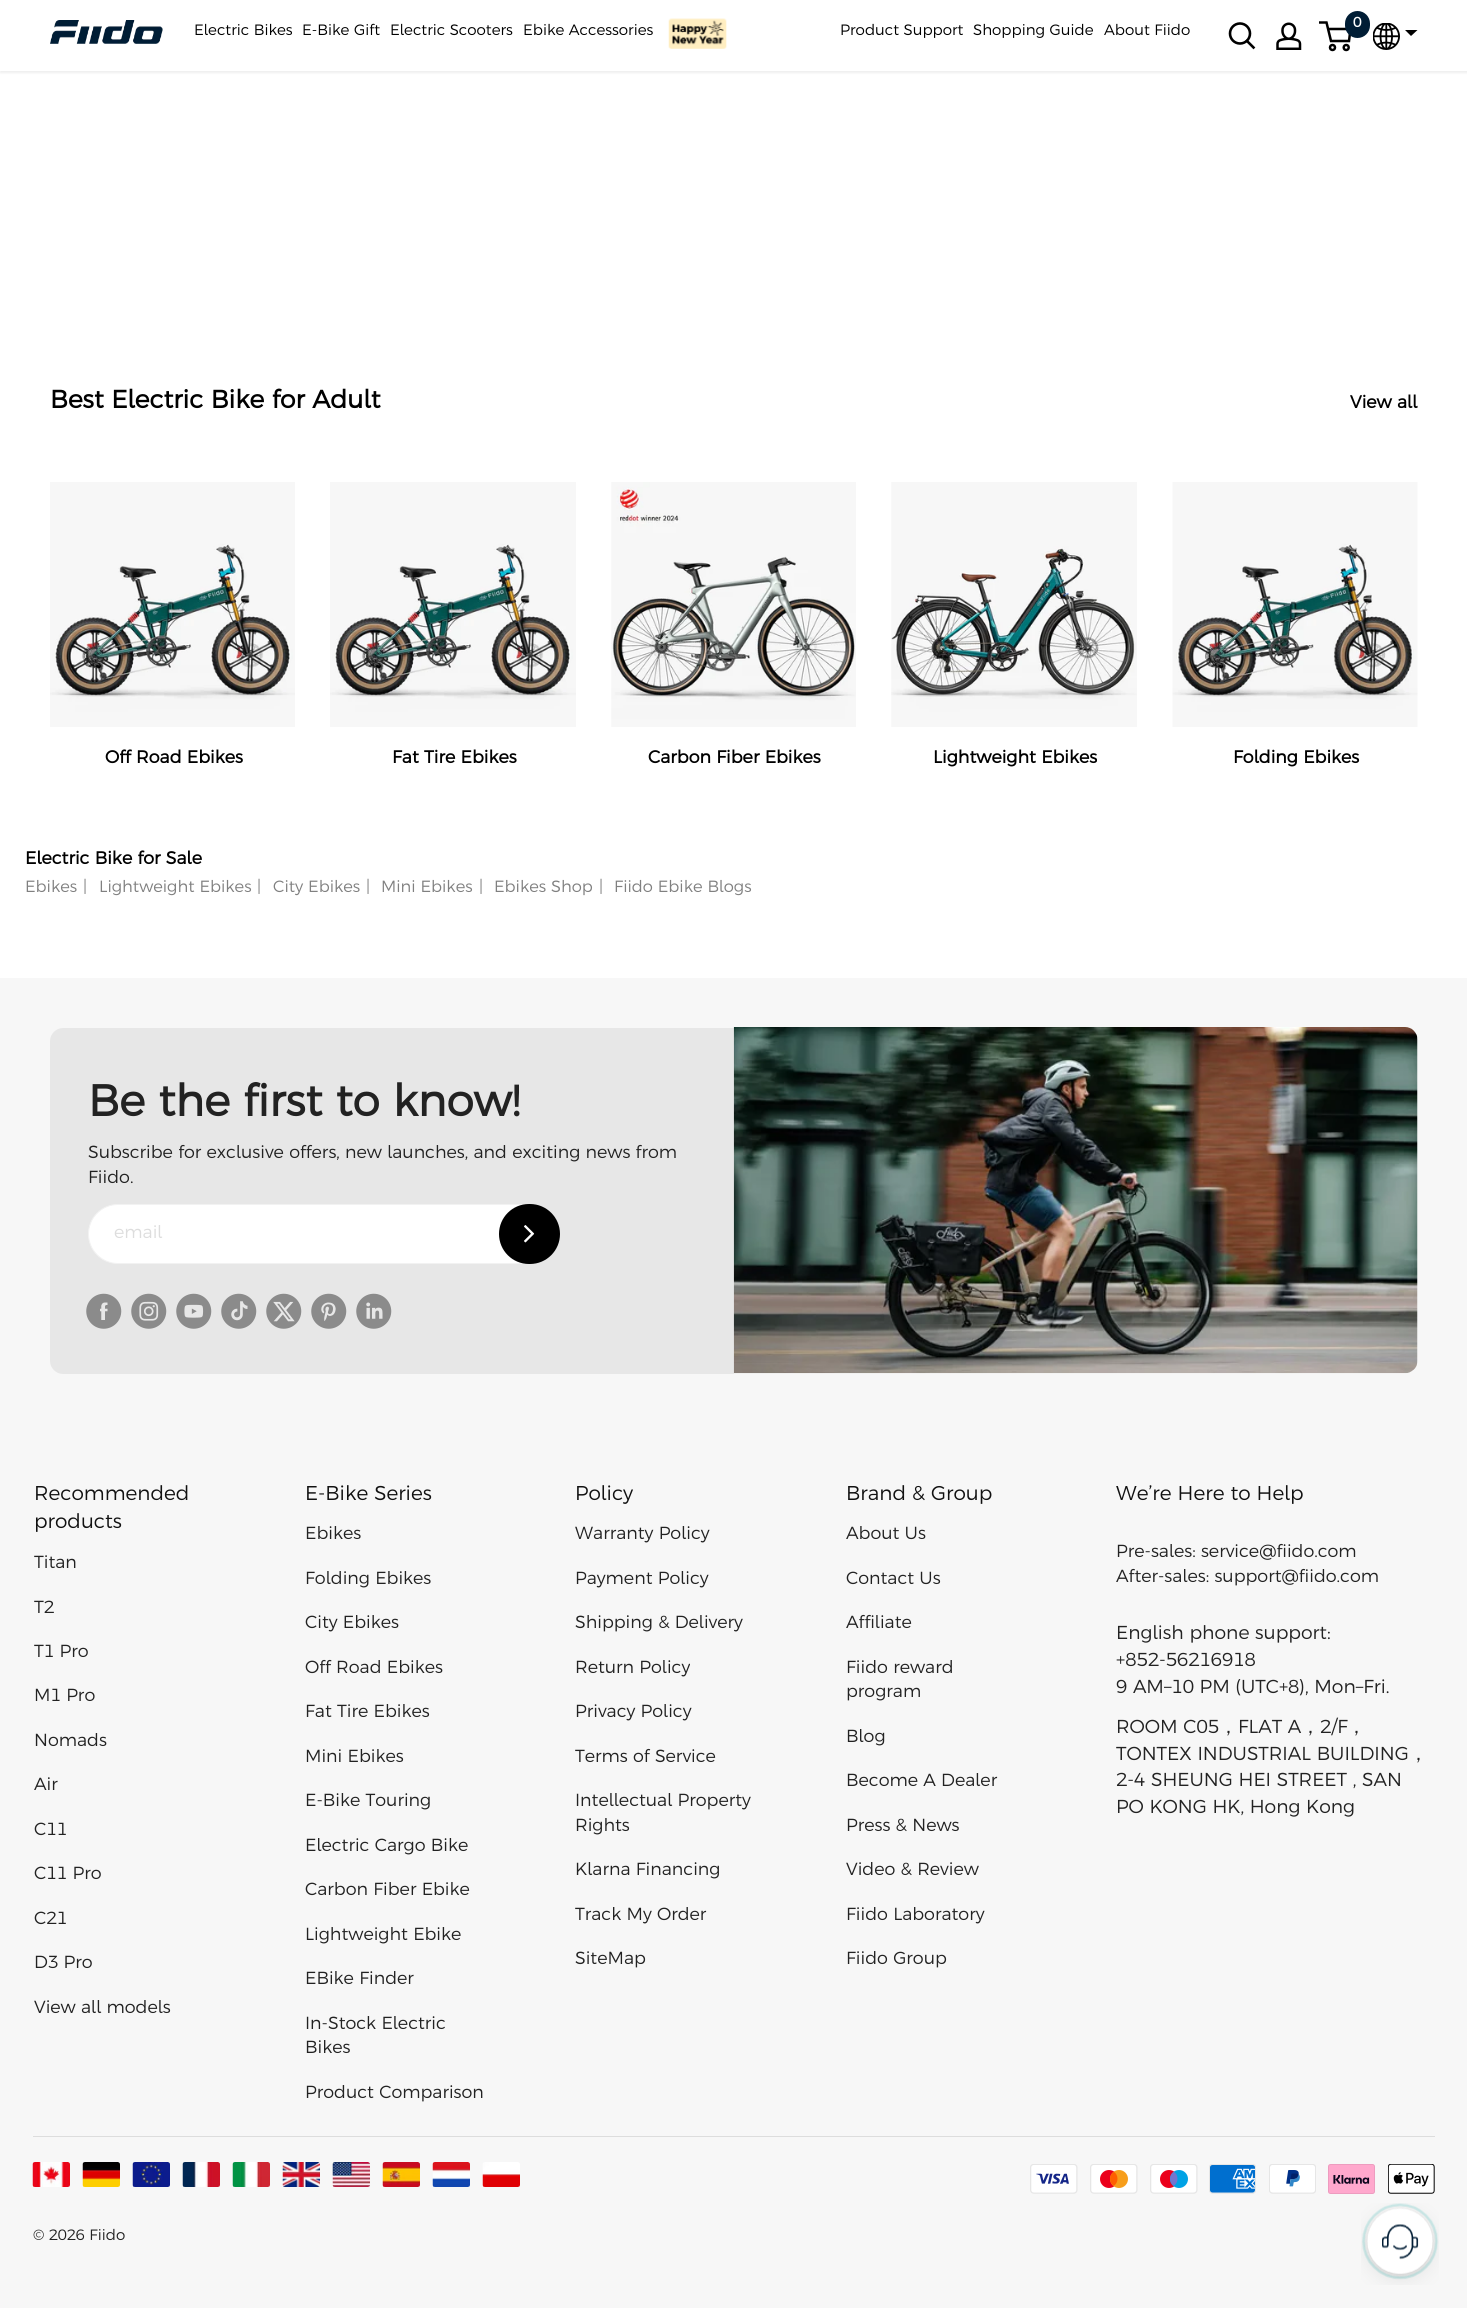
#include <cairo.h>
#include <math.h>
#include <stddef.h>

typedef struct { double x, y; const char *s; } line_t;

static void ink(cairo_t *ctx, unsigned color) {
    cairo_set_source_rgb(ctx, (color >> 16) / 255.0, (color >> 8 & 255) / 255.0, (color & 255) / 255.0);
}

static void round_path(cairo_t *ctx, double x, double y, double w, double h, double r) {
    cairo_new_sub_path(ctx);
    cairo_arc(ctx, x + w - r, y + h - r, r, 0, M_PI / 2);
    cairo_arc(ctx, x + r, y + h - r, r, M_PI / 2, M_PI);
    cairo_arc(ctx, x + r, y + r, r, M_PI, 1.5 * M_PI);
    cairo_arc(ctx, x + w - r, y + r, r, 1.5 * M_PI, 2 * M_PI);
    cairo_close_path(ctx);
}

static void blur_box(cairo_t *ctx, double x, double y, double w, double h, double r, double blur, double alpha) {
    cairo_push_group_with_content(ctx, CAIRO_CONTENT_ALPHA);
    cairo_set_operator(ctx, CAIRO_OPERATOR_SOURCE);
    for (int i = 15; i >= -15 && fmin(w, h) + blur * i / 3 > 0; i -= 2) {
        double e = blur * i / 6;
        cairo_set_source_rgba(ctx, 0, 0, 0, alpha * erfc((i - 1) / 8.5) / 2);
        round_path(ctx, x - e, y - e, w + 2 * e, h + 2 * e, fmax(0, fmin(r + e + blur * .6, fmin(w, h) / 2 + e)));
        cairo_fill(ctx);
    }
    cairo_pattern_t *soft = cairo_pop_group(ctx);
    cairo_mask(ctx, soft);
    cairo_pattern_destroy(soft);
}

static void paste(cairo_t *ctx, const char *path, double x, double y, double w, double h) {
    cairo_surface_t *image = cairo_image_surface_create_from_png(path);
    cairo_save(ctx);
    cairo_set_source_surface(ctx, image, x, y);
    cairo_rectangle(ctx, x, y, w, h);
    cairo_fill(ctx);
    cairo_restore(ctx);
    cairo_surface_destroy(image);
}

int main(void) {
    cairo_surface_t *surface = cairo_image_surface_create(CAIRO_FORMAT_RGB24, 1467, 2308);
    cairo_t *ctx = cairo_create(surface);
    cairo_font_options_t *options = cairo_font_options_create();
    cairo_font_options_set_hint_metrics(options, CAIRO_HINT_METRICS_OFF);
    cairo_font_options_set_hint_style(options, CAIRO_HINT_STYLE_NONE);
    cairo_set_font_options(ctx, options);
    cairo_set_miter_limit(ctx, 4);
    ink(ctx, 0xFFFFFF);
    cairo_paint(ctx);
    cairo_save(ctx);
    cairo_rectangle(ctx, 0, 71, 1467, 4);
    cairo_clip(ctx);
    ink(ctx, 0xEFEFEF);
    blur_box(ctx, 0, 1, 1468, 72, 0, 1, 1);
    cairo_restore(ctx);
    paste(ctx, "media/1.png", 50, 20, 113, 24);
    cairo_select_font_face(ctx, "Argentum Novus", CAIRO_FONT_SLANT_NORMAL, CAIRO_FONT_WEIGHT_NORMAL);
    cairo_set_font_size(ctx, 15);
    ink(ctx, 0x000000);
    {
        static const line_t items[] = {
            {194, 35, "Electric Bikes"},
            {302, 35, "E-Bike Gift"},
            {390, 35, "Electric Scooters"},
            {523, 35, "Ebike Accessories"},
        };
        for (size_t i = 0; i < sizeof items / sizeof *items; i++) {
            cairo_move_to(ctx, items[i].x, items[i].y);
            cairo_show_text(ctx, items[i].s);
        }
    }
    paste(ctx, "media/2.png", 668, 18, 59, 31);
    {
        static const line_t items[] = {
            {840, 35, "Product Support"},
            {973, 35, "Shopping Guide"},
            {1104, 35, "About Fiido"},
        };
        for (size_t i = 0; i < sizeof items / sizeof *items; i++) {
            cairo_move_to(ctx, items[i].x, items[i].y);
            cairo_show_text(ctx, items[i].s);
        }
    }
    cairo_new_path(ctx);
    cairo_move_to(ctx, 1253.5, 47.5);
    cairo_line_to(ctx, 1247, 41);
    cairo_set_line_width(ctx, 2.6);
    cairo_set_line_cap(ctx, CAIRO_LINE_CAP_SQUARE);
    cairo_stroke(ctx);
    cairo_arc(ctx, 1240, 33.5, 10, 0, 2 * M_PI);
    cairo_set_line_cap(ctx, CAIRO_LINE_CAP_BUTT);
    cairo_stroke(ctx);
    paste(ctx, "media/3.png", 1276, 22, 26, 28);
    cairo_arc(ctx, 1332.5, 47.5, 2.5, 0, 2 * M_PI);
    cairo_set_line_width(ctx, 2.5);
    cairo_stroke(ctx);
    cairo_arc(ctx, 1346.2, 47.5, 2.5, 0, 2 * M_PI);
    cairo_stroke(ctx);
    cairo_new_path(ctx);
    cairo_move_to(ctx, 1328, 29);
    cairo_line_to(ctx, 1350.5, 29);
    cairo_line_to(ctx, 1349, 41);
    cairo_line_to(ctx, 1331, 41);
    cairo_line_to(ctx, 1326.5, 22.5);
    cairo_line_to(ctx, 1319, 22.5);
    cairo_stroke(ctx);
    ink(ctx, 0x001D35);
    round_path(ctx, 1345, 11, 25, 27, 12.5);
    cairo_fill(ctx);
    cairo_select_font_face(ctx, "Argentum Novus", CAIRO_FONT_SLANT_NORMAL, CAIRO_FONT_WEIGHT_BOLD);
    cairo_set_font_size(ctx, 14);
    ink(ctx, 0xFFFFFF);
    cairo_move_to(ctx, 1353, 27);
    cairo_show_text(ctx, "0");
    paste(ctx, "media/4.png", 1373, 23, 27, 27);
    ink(ctx, 0x000000);
    cairo_new_path(ctx);
    cairo_move_to(ctx, 1405, 30);
    cairo_line_to(ctx, 1417.5, 30);
    cairo_line_to(ctx, 1411, 36);
    cairo_close_path(ctx);
    cairo_fill(ctx);
    cairo_set_font_size(ctx, 25);
    cairo_move_to(ctx, 50, 408);
    cairo_show_text(ctx, "Best Electric Bike for Adult");
    cairo_set_font_size(ctx, 17.5);
    cairo_move_to(ctx, 1350, 408);
    cairo_show_text(ctx, "View all");
    paste(ctx, "media/5.png", 50, 482, 245, 245);
    cairo_move_to(ctx, 105, 763);
    cairo_show_text(ctx, "Off Road Ebikes");
    paste(ctx, "media/6.png", 330, 482, 246, 245);
    cairo_move_to(ctx, 392, 763);
    cairo_show_text(ctx, "Fat Tire Ebikes");
    paste(ctx, "media/7.png", 611, 482, 245, 245);
    cairo_move_to(ctx, 648, 763);
    cairo_show_text(ctx, "Carbon Fiber Ebikes");
    paste(ctx, "media/8.png", 891, 482, 246, 245);
    cairo_move_to(ctx, 933, 763);
    cairo_show_text(ctx, "Lightweight Ebikes");
    paste(ctx, "media/9.png", 1172, 482, 246, 245);
    cairo_move_to(ctx, 1233, 763);
    cairo_show_text(ctx, "Folding Ebikes");
    cairo_move_to(ctx, 25, 864);
    cairo_show_text(ctx, "Electric Bike for Sale");
    cairo_select_font_face(ctx, "Argentum Novus", CAIRO_FONT_SLANT_NORMAL, CAIRO_FONT_WEIGHT_NORMAL);
    cairo_set_font_size(ctx, 16.25);
    ink(ctx, 0x808080);
    {
        static const line_t items[] = {
            {25, 892, "Ebikes"},
            {83, 892, "|"},
            {99, 892, "Lightweight Ebikes"},
            {257, 892, "|"},
            {273, 892, "City Ebikes"},
            {366, 892, "|"},
            {381, 892, "Mini Ebikes"},
            {479, 892, "|"},
            {494, 892, "Ebikes Shop"},
            {599, 892, "|"},
            {614, 892, "Fiido Ebike Blogs"},
        };
        for (size_t i = 0; i < sizeof items / sizeof *items; i++) {
            cairo_move_to(ctx, items[i].x, items[i].y);
            cairo_show_text(ctx, items[i].s);
        }
    }
    ink(ctx, 0xF7F7F7);
    cairo_rectangle(ctx, 0, 978, 1467, 1330);
    cairo_fill(ctx);
    ink(ctx, 0xE7E7E7);
    cairo_new_path(ctx);
    cairo_move_to(ctx, 63, 1028);
    cairo_line_to(ctx, 734, 1028);
    cairo_line_to(ctx, 734, 1374);
    cairo_line_to(ctx, 63, 1374);
    cairo_curve_to(ctx, 56, 1374, 50, 1368, 50, 1361);
    cairo_line_to(ctx, 50, 1041);
    cairo_curve_to(ctx, 50, 1034, 56, 1028, 63, 1028);
    cairo_close_path(ctx);
    cairo_fill(ctx);
    cairo_select_font_face(ctx, "Argentum Novus", CAIRO_FONT_SLANT_NORMAL, CAIRO_FONT_WEIGHT_BOLD);
    cairo_set_font_size(ctx, 43.75);
    ink(ctx, 0x222222);
    cairo_move_to(ctx, 88, 1116);
    cairo_show_text(ctx, "Be the first to know!");
    cairo_select_font_face(ctx, "Argentum Novus", CAIRO_FONT_SLANT_NORMAL, CAIRO_FONT_WEIGHT_NORMAL);
    cairo_set_font_size(ctx, 17.5);
    cairo_move_to(ctx, 88, 1158);
    cairo_show_text(ctx, "Subscribe for exclusive offers, new launches, and exciting news from");
    cairo_move_to(ctx, 88, 1183);
    cairo_show_text(ctx, "Fiido.");
    ink(ctx, 0xFFFFFF);
    round_path(ctx, 88.5, 1204.5, 471, 59, 29.5);
    cairo_fill_preserve(ctx);
    ink(ctx, 0xF2F2F2);
    cairo_set_line_width(ctx, 1);
    cairo_stroke(ctx);
    ink(ctx, 0xDDDDDD);
    cairo_move_to(ctx, 114, 1238);
    cairo_show_text(ctx, "email");
    ink(ctx, 0x000000);
    round_path(ctx, 499, 1204, 61, 60, 30);
    cairo_fill(ctx);
    paste(ctx, "media/10.png", 524, 1225, 11, 18);
    paste(ctx, "media/11.png", 86, 1293, 36, 36);
    paste(ctx, "media/12.png", 131, 1293, 36, 36);
    paste(ctx, "media/13.png", 176, 1293, 36, 36);
    paste(ctx, "media/14.png", 221, 1293, 36, 36);
    paste(ctx, "media/15.png", 266, 1293, 36, 36);
    paste(ctx, "media/16.png", 311, 1293, 36, 36);
    paste(ctx, "media/17.png", 356, 1293, 36, 36);
    paste(ctx, "media/18.png", 733, 1027, 685, 347);
    cairo_set_font_size(ctx, 20);
    ink(ctx, 0x111111);
    cairo_move_to(ctx, 34, 1500);
    cairo_show_text(ctx, "Recommended");
    cairo_move_to(ctx, 34, 1528);
    cairo_show_text(ctx, "products");
    cairo_set_font_size(ctx, 17.5);
    ink(ctx, 0x222222);
    {
        static const line_t items[] = {
            {34, 1568, "Titan"},
            {34, 1613, "T2"},
            {34, 1657, "T1 Pro"},
            {34, 1701, "M1 Pro"},
            {34, 1746, "Nomads"},
            {34, 1790, "Air"},
            {34, 1835, "C11"},
            {34, 1879, "C11 Pro"},
            {34, 1924, "C21"},
            {34, 1968, "D3 Pro"},
            {34, 2013, "View all models"},
        };
        for (size_t i = 0; i < sizeof items / sizeof *items; i++) {
            cairo_move_to(ctx, items[i].x, items[i].y);
            cairo_show_text(ctx, items[i].s);
        }
    }
    cairo_set_font_size(ctx, 20);
    ink(ctx, 0x111111);
    cairo_move_to(ctx, 305, 1500);
    cairo_show_text(ctx, "E-Bike Series");
    cairo_set_font_size(ctx, 17.5);
    ink(ctx, 0x222222);
    {
        static const line_t items[] = {
            {305, 1539, "Ebikes"},
            {305, 1584, "Folding Ebikes"},
            {305, 1628, "City Ebikes"},
            {305, 1673, "Off Road Ebikes"},
            {305, 1717, "Fat Tire Ebikes"},
            {305, 1762, "Mini Ebikes"},
            {305, 1806, "E-Bike Touring"},
            {305, 1851, "Electric Cargo Bike"},
            {305, 1895, "Carbon Fiber Ebike"},
            {305, 1940, "Lightweight Ebike"},
            {305, 1984, "EBike Finder"},
            {305, 2029, "In-Stock Electric"},
            {305, 2053, "Bikes"},
            {305, 2098, "Product Comparison"},
        };
        for (size_t i = 0; i < sizeof items / sizeof *items; i++) {
            cairo_move_to(ctx, items[i].x, items[i].y);
            cairo_show_text(ctx, items[i].s);
        }
    }
    cairo_set_font_size(ctx, 20);
    ink(ctx, 0x111111);
    cairo_move_to(ctx, 575, 1500);
    cairo_show_text(ctx, "Policy");
    cairo_set_font_size(ctx, 17.5);
    ink(ctx, 0x222222);
    {
        static const line_t items[] = {
            {575, 1539, "Warranty Policy"},
            {575, 1584, "Payment Policy"},
            {575, 1628, "Shipping & Delivery"},
            {575, 1673, "Return Policy"},
            {575, 1717, "Privacy Policy"},
            {575, 1762, "Terms of Service"},
            {575, 1806, "Intellectual Property"},
            {575, 1831, "Rights"},
            {575, 1875, "Klarna Financing"},
            {575, 1920, "Track My Order"},
            {575, 1964, "SiteMap"},
        };
        for (size_t i = 0; i < sizeof items / sizeof *items; i++) {
            cairo_move_to(ctx, items[i].x, items[i].y);
            cairo_show_text(ctx, items[i].s);
        }
    }
    cairo_set_font_size(ctx, 20);
    ink(ctx, 0x111111);
    cairo_move_to(ctx, 846, 1500);
    cairo_show_text(ctx, "Brand & Group");
    cairo_set_font_size(ctx, 17.5);
    ink(ctx, 0x222222);
    {
        static const line_t items[] = {
            {846, 1539, "About Us"},
            {846, 1584, "Contact Us"},
            {846, 1628, "Affiliate"},
            {846, 1673, "Fiido reward"},
            {846, 1697, "program"},
            {846, 1742, "Blog"},
            {846, 1786, "Become A Dealer"},
            {846, 1831, "Press & News"},
            {846, 1875, "Video & Review"},
            {846, 1920, "Fiido Laboratory"},
            {846, 1964, "Fiido Group"},
        };
        for (size_t i = 0; i < sizeof items / sizeof *items; i++) {
            cairo_move_to(ctx, items[i].x, items[i].y);
            cairo_show_text(ctx, items[i].s);
        }
    }
    cairo_set_font_size(ctx, 20);
    ink(ctx, 0x111111);
    cairo_move_to(ctx, 1116, 1500);
    cairo_show_text(ctx, "We’re Here to Help");
    cairo_set_font_size(ctx, 17.5);
    ink(ctx, 0x222222);
    cairo_move_to(ctx, 1116, 1557);
    cairo_show_text(ctx, "Pre-sales: service@fiido.com");
    cairo_move_to(ctx, 1116, 1582);
    cairo_show_text(ctx, "After-sales: support@fiido.com");
    cairo_set_font_size(ctx, 18.75);
    {
        static const line_t items[] = {
            {1116, 1639, "English phone support:"},
            {1116, 1666, "+852-56216918"},
            {1116, 1693, "9 AM–10 PM (UTC+8), Mon–Fri."},
            {1116, 1733, "ROOM C05"},
        };
        for (size_t i = 0; i < sizeof items / sizeof *items; i++) {
            cairo_move_to(ctx, items[i].x, items[i].y);
            cairo_show_text(ctx, items[i].s);
        }
    }
    cairo_select_font_face(ctx, "WenQuanYi Zen Hei Medium", CAIRO_FONT_SLANT_NORMAL, CAIRO_FONT_WEIGHT_NORMAL);
    cairo_move_to(ctx, 1219, 1733);
    cairo_show_text(ctx, "，");
    cairo_select_font_face(ctx, "Argentum Novus", CAIRO_FONT_SLANT_NORMAL, CAIRO_FONT_WEIGHT_NORMAL);
    cairo_move_to(ctx, 1238, 1733);
    cairo_show_text(ctx, "FLAT A");
    cairo_select_font_face(ctx, "WenQuanYi Zen Hei Medium", CAIRO_FONT_SLANT_NORMAL, CAIRO_FONT_WEIGHT_NORMAL);
    cairo_move_to(ctx, 1301, 1733);
    cairo_show_text(ctx, "，");
    cairo_select_font_face(ctx, "Argentum Novus", CAIRO_FONT_SLANT_NORMAL, CAIRO_FONT_WEIGHT_NORMAL);
    cairo_move_to(ctx, 1320, 1733);
    cairo_show_text(ctx, "2/F");
    cairo_select_font_face(ctx, "WenQuanYi Zen Hei Medium", CAIRO_FONT_SLANT_NORMAL, CAIRO_FONT_WEIGHT_NORMAL);
    cairo_move_to(ctx, 1347, 1733);
    cairo_show_text(ctx, "，");
    cairo_select_font_face(ctx, "Argentum Novus", CAIRO_FONT_SLANT_NORMAL, CAIRO_FONT_WEIGHT_NORMAL);
    cairo_move_to(ctx, 1116, 1760);
    cairo_show_text(ctx, "TONTEX INDUSTRIAL BUILDING");
    cairo_select_font_face(ctx, "WenQuanYi Zen Hei Medium", CAIRO_FONT_SLANT_NORMAL, CAIRO_FONT_WEIGHT_NORMAL);
    cairo_move_to(ctx, 1409, 1760);
    cairo_show_text(ctx, "，");
    cairo_select_font_face(ctx, "Argentum Novus", CAIRO_FONT_SLANT_NORMAL, CAIRO_FONT_WEIGHT_NORMAL);
    cairo_move_to(ctx, 1116, 1786);
    cairo_show_text(ctx, "2-4 SHEUNG HEI STREET , SAN");
    cairo_move_to(ctx, 1116, 1813);
    cairo_show_text(ctx, "PO KONG HK, Hong Kong");
    ink(ctx, 0xDDDDDD);
    cairo_rectangle(ctx, 33, 2136, 1402, 1);
    cairo_fill(ctx);
    paste(ctx, "media/19.png", 32, 2162, 38, 25);
    paste(ctx, "media/20.png", 82, 2162, 38, 25);
    paste(ctx, "media/21.png", 132, 2162, 38, 25);
    paste(ctx, "media/22.png", 182, 2162, 38, 25);
    paste(ctx, "media/23.png", 232, 2162, 38, 25);
    paste(ctx, "media/24.png", 282, 2162, 38, 25);
    paste(ctx, "media/25.png", 332, 2162, 38, 25);
    paste(ctx, "media/26.png", 382, 2162, 38, 25);
    paste(ctx, "media/27.png", 432, 2162, 38, 25);
    paste(ctx, "media/28.png", 482, 2162, 38, 25);
    paste(ctx, "media/29.png", 1030, 2164, 48, 30);
    paste(ctx, "media/30.png", 1090, 2164, 48, 30);
    paste(ctx, "media/31.png", 1150, 2164, 48, 30);
    paste(ctx, "media/32.png", 1209, 2164, 47, 30);
    paste(ctx, "media/33.png", 1269, 2164, 47, 30);
    paste(ctx, "media/34.png", 1328, 2164, 47, 30);
    paste(ctx, "media/35.png", 1388, 2164, 47, 30);
    cairo_set_font_size(ctx, 15);
    ink(ctx, 0x222222);
    cairo_move_to(ctx, 33, 2240);
    cairo_show_text(ctx, "© 2026 Fiido");
    paste(ctx, "media/36.png", 1361, 2203, 78, 82);
    cairo_surface_write_to_png(surface, "image.png");
    cairo_font_options_destroy(options);
    cairo_destroy(ctx);
    cairo_surface_destroy(surface);
    return 0;
}
